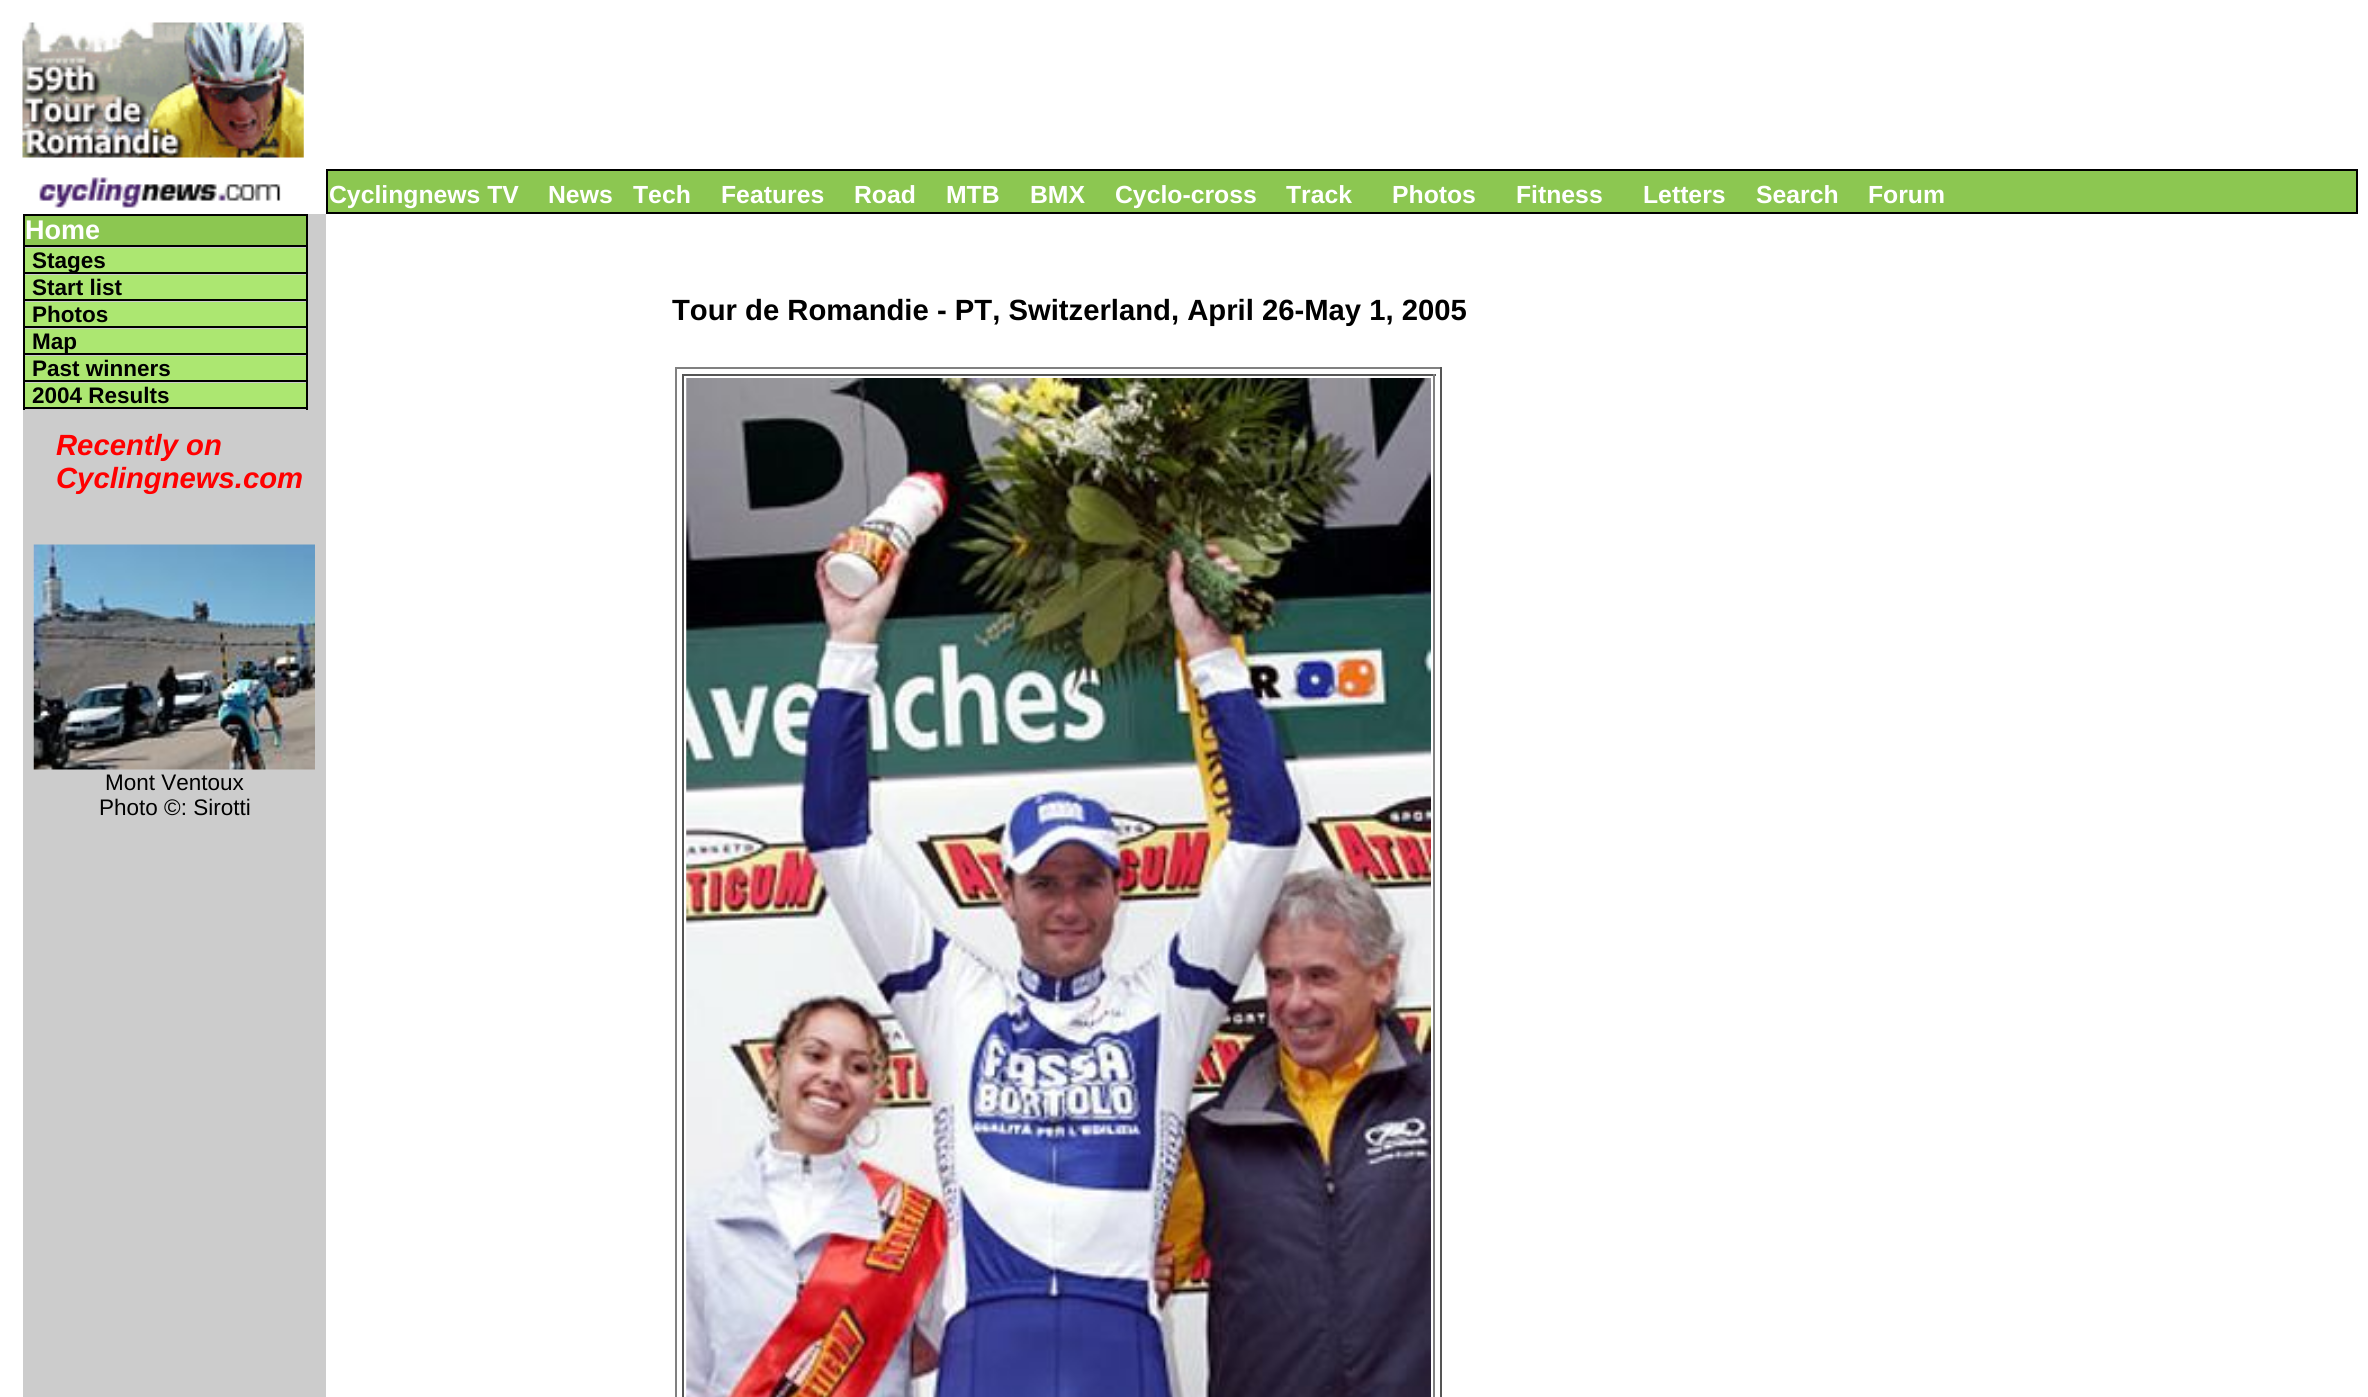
#include <cairo.h>
#include <math.h>
#include <stddef.h>

typedef struct { double x, y; const char *s; } line_t;
typedef struct { double x, y, w, h; unsigned color; } box_t;

static void ink(cairo_t *ctx, unsigned color) {
    cairo_set_source_rgb(ctx, (color >> 16) / 255.0, (color >> 8 & 255) / 255.0, (color & 255) / 255.0);
}

static void paste(cairo_t *ctx, const char *path, double x, double y, double w, double h) {
    cairo_surface_t *image = cairo_image_surface_create_from_png(path);
    cairo_save(ctx);
    cairo_set_source_surface(ctx, image, x, y);
    cairo_rectangle(ctx, x, y, w, h);
    cairo_fill(ctx);
    cairo_restore(ctx);
    cairo_surface_destroy(image);
}

int main(void) {
    cairo_surface_t *surface = cairo_image_surface_create(CAIRO_FORMAT_RGB24, 2368, 1397);
    cairo_t *ctx = cairo_create(surface);
    cairo_font_options_t *options = cairo_font_options_create();
    cairo_font_options_set_hint_metrics(options, CAIRO_HINT_METRICS_OFF);
    cairo_font_options_set_hint_style(options, CAIRO_HINT_STYLE_NONE);
    cairo_set_font_options(ctx, options);
    cairo_set_miter_limit(ctx, 4);
    ink(ctx, 0xFFFFFF);
    cairo_paint(ctx);
    paste(ctx, "media/1.png", 22, 22, 282, 136);
    paste(ctx, "media/2.png", 39, 177, 242, 31);
    ink(ctx, 0x8CC751);
    cairo_rectangle(ctx, 327, 170, 2030, 43);
    cairo_fill_preserve(ctx);
    ink(ctx, 0x000000);
    cairo_stroke(ctx);
    cairo_select_font_face(ctx, "Liberation Sans", CAIRO_FONT_SLANT_NORMAL, CAIRO_FONT_WEIGHT_BOLD);
    cairo_set_font_size(ctx, 24.75);
    ink(ctx, 0xFFFFFF);
    {
        static const line_t items[] = {
            {329, 203, "Cyclingnews TV"},
            {548, 203, "News"},
            {633, 203, "Tech"},
            {721, 203, "Features"},
            {854, 203, "Road"},
            {946, 203, "MTB"},
            {1030, 203, "BMX"},
            {1115, 203, "Cyclo-cross"},
            {1286, 203, "Track"},
            {1392, 203, "Photos"},
            {1516, 203, "Fitness"},
            {1643, 203, "Letters"},
            {1756, 203, "Search"},
            {1868, 203, "Forum"},
        };
        for (size_t i = 0; i < sizeof items / sizeof *items; i++) {
            cairo_move_to(ctx, items[i].x, items[i].y);
            cairo_show_text(ctx, items[i].s);
        }
    }
    {
        static const box_t items[] = {
            {23, 214, 303, 1183, 0xCCCCCC},
            {23, 214, 285, 2, 0x000000},
            {25, 216, 281, 29, 0x8CC751},
            {306, 216, 2, 194, 0x000000},
            {23, 245, 285, 2, 0x000000},
            {23, 216, 2, 32, 0x000000},
        };
        for (size_t i = 0; i < sizeof items / sizeof *items; i++) {
            ink(ctx, items[i].color);
            cairo_rectangle(ctx, items[i].x, items[i].y, items[i].w, items[i].h);
            cairo_fill(ctx);
        }
    }
    cairo_set_font_size(ctx, 27);
    ink(ctx, 0xFFFFFF);
    cairo_move_to(ctx, 25, 239);
    cairo_show_text(ctx, "Home");
    {
        static const box_t items[] = {
            {25, 248, 281, 24, 0xACE771},
            {23, 272, 285, 2, 0x000000},
            {23, 248, 2, 27, 0x000000},
        };
        for (size_t i = 0; i < sizeof items / sizeof *items; i++) {
            ink(ctx, items[i].color);
            cairo_rectangle(ctx, items[i].x, items[i].y, items[i].w, items[i].h);
            cairo_fill(ctx);
        }
    }
    cairo_set_font_size(ctx, 22.5);
    cairo_move_to(ctx, 32, 268);
    cairo_show_text(ctx, "Stages");
    {
        static const box_t items[] = {
            {25, 275, 281, 24, 0xACE771},
            {23, 299, 285, 2, 0x000000},
            {23, 275, 2, 27, 0x000000},
        };
        for (size_t i = 0; i < sizeof items / sizeof *items; i++) {
            ink(ctx, items[i].color);
            cairo_rectangle(ctx, items[i].x, items[i].y, items[i].w, items[i].h);
            cairo_fill(ctx);
        }
    }
    cairo_move_to(ctx, 32, 295);
    cairo_show_text(ctx, "Start list");
    {
        static const box_t items[] = {
            {25, 302, 281, 24, 0xACE771},
            {23, 326, 285, 2, 0x000000},
            {23, 302, 2, 27, 0x000000},
        };
        for (size_t i = 0; i < sizeof items / sizeof *items; i++) {
            ink(ctx, items[i].color);
            cairo_rectangle(ctx, items[i].x, items[i].y, items[i].w, items[i].h);
            cairo_fill(ctx);
        }
    }
    cairo_move_to(ctx, 32, 322);
    cairo_show_text(ctx, "Photos");
    {
        static const box_t items[] = {
            {25, 329, 281, 24, 0xACE771},
            {23, 353, 285, 2, 0x000000},
            {23, 329, 2, 27, 0x000000},
        };
        for (size_t i = 0; i < sizeof items / sizeof *items; i++) {
            ink(ctx, items[i].color);
            cairo_rectangle(ctx, items[i].x, items[i].y, items[i].w, items[i].h);
            cairo_fill(ctx);
        }
    }
    cairo_move_to(ctx, 32, 349);
    cairo_show_text(ctx, "Map");
    {
        static const box_t items[] = {
            {25, 356, 281, 24, 0xACE771},
            {23, 380, 285, 2, 0x000000},
            {23, 356, 2, 27, 0x000000},
        };
        for (size_t i = 0; i < sizeof items / sizeof *items; i++) {
            ink(ctx, items[i].color);
            cairo_rectangle(ctx, items[i].x, items[i].y, items[i].w, items[i].h);
            cairo_fill(ctx);
        }
    }
    cairo_move_to(ctx, 32, 376);
    cairo_show_text(ctx, "Past winners");
    {
        static const box_t items[] = {
            {25, 383, 281, 24, 0xACE771},
            {23, 407, 285, 2, 0x000000},
            {23, 383, 2, 27, 0x000000},
        };
        for (size_t i = 0; i < sizeof items / sizeof *items; i++) {
            ink(ctx, items[i].color);
            cairo_rectangle(ctx, items[i].x, items[i].y, items[i].w, items[i].h);
            cairo_fill(ctx);
        }
    }
    cairo_move_to(ctx, 32, 403);
    cairo_show_text(ctx, "2004 Results");
    cairo_select_font_face(ctx, "Liberation Sans", CAIRO_FONT_SLANT_ITALIC, CAIRO_FONT_WEIGHT_BOLD);
    cairo_set_font_size(ctx, 29.25);
    ink(ctx, 0xFF0000);
    cairo_move_to(ctx, 56, 455);
    cairo_show_text(ctx, "Recently on");
    cairo_move_to(ctx, 56, 488);
    cairo_show_text(ctx, "Cyclingnews.com");
    paste(ctx, "media/3.png", 33, 544, 282, 226);
    cairo_select_font_face(ctx, "Liberation Sans", CAIRO_FONT_SLANT_NORMAL, CAIRO_FONT_WEIGHT_NORMAL);
    cairo_set_font_size(ctx, 22.5);
    ink(ctx, 0x000000);
    cairo_move_to(ctx, 105, 790);
    cairo_show_text(ctx, "Mont Ventoux");
    cairo_move_to(ctx, 99, 815);
    cairo_show_text(ctx, "Photo ©: Sirotti");
    cairo_select_font_face(ctx, "Liberation Sans", CAIRO_FONT_SLANT_NORMAL, CAIRO_FONT_WEIGHT_BOLD);
    cairo_set_font_size(ctx, 29.25);
    cairo_move_to(ctx, 672, 320);
    cairo_show_text(ctx, "Tour de Romandie - PT, Switzerland, April 26-May 1, 2005");
    {
        static const box_t items[] = {
            {675, 367, 767, 2, 0x808080},
            {1440, 367, 2, 1030, 0x555555},
            {675, 367, 2, 1030, 0x808080},
            {682, 374, 754, 2, 0x555555},
            {1433, 374, 2, 1023, 0x808080},
            {682, 374, 2, 1023, 0x555555},
        };
        for (size_t i = 0; i < sizeof items / sizeof *items; i++) {
            ink(ctx, items[i].color);
            cairo_rectangle(ctx, items[i].x, items[i].y, items[i].w, items[i].h);
            cairo_fill(ctx);
        }
    }
    paste(ctx, "media/4.png", 686, 378, 745, 1019);
    cairo_surface_write_to_png(surface, "image.png");
    cairo_font_options_destroy(options);
    cairo_destroy(ctx);
    cairo_surface_destroy(surface);
    return 0;
}
